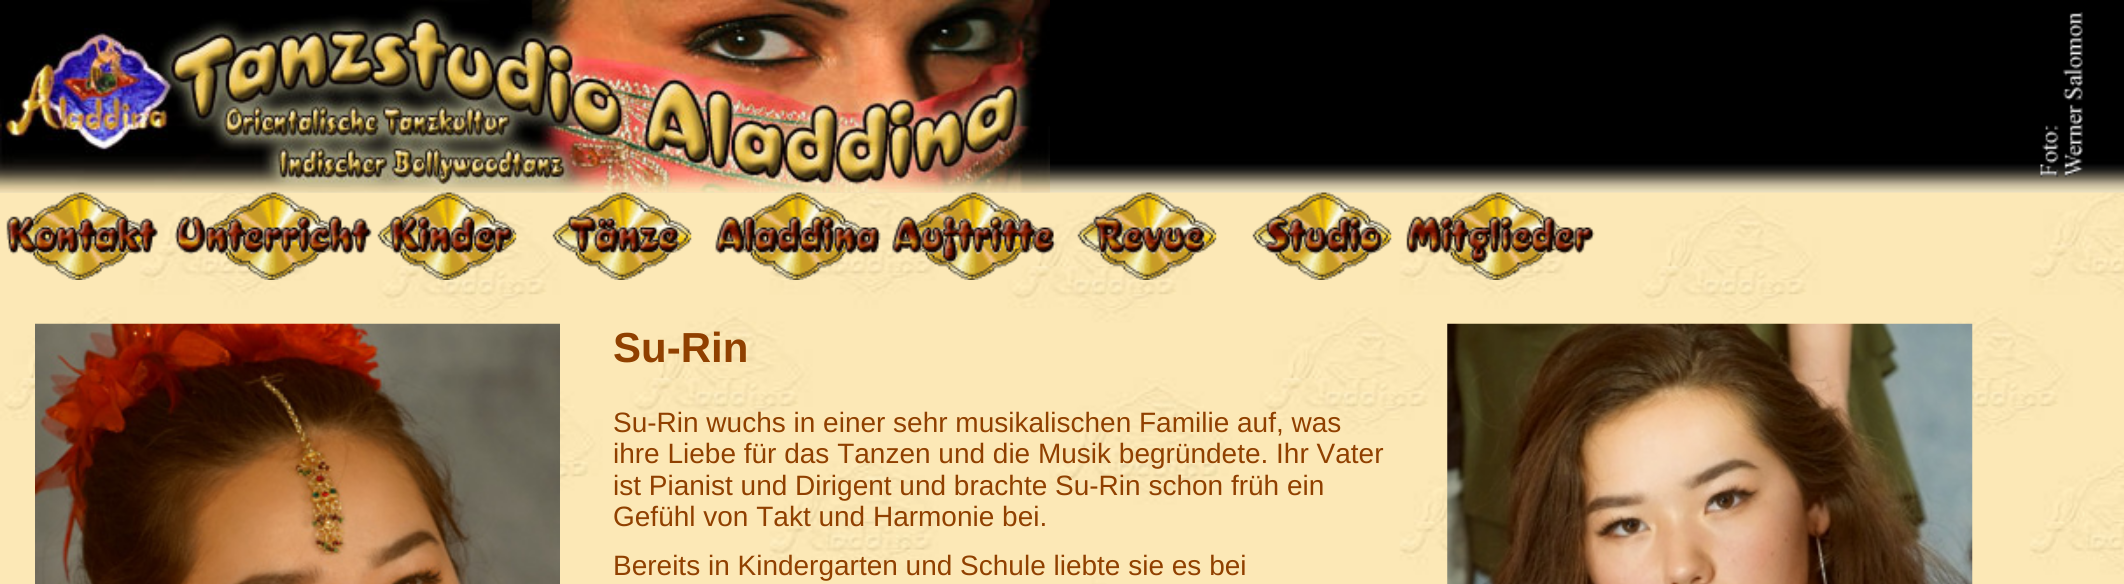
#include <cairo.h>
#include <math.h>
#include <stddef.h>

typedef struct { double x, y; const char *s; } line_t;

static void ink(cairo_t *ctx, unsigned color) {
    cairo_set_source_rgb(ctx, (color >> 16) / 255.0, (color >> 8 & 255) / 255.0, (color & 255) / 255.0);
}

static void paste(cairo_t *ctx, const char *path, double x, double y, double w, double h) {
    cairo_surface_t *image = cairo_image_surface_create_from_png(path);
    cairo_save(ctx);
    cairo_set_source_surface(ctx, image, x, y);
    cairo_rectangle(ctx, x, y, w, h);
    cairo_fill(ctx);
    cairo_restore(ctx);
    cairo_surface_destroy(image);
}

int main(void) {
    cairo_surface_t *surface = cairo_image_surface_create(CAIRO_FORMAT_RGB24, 2124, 584);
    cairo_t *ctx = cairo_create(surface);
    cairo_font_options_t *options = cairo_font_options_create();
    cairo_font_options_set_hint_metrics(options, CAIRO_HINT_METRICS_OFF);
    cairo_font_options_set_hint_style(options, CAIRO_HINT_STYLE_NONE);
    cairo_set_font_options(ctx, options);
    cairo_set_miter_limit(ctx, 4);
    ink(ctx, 0xFFFFFF);
    cairo_paint(ctx);
    paste(ctx, "media/1.png", 0, 192, 2124, 392);
    paste(ctx, "media/2.png", 0, 0, 2124, 193);
    paste(ctx, "media/3.png", 0, 0, 1050, 193);
    paste(ctx, "media/4.png", 2040, 12, 43, 166);
    paste(ctx, "media/5.png", 18, 192, 125, 88);
    paste(ctx, "media/6.png", 6, 216, 152, 39);
    paste(ctx, "media/7.png", 206, 192, 126, 88);
    paste(ctx, "media/8.png", 174, 215, 198, 40);
    paste(ctx, "media/9.png", 377, 192, 140, 88);
    paste(ctx, "media/10.png", 389, 216, 125, 39);
    paste(ctx, "media/11.png", 552, 192, 140, 88);
    paste(ctx, "media/12.png", 566, 215, 114, 40);
    paste(ctx, "media/13.png", 727, 192, 140, 88);
    paste(ctx, "media/14.png", 715, 216, 166, 39);
    paste(ctx, "media/15.png", 904, 192, 136, 88);
    paste(ctx, "media/16.png", 892, 214, 164, 49);
    paste(ctx, "media/17.png", 1077, 192, 140, 88);
    paste(ctx, "media/18.png", 1093, 214, 114, 41);
    paste(ctx, "media/19.png", 1252, 192, 140, 88);
    paste(ctx, "media/20.png", 1264, 216, 119, 39);
    paste(ctx, "media/21.png", 1438, 192, 126, 88);
    paste(ctx, "media/22.png", 1406, 216, 189, 47);
    paste(ctx, "media/23.png", 35, 323, 525, 261);
    cairo_select_font_face(ctx, "Liberation Sans", CAIRO_FONT_SLANT_NORMAL, CAIRO_FONT_WEIGHT_BOLD);
    cairo_set_font_size(ctx, 42);
    ink(ctx, 0x904000);
    cairo_move_to(ctx, 613, 362);
    cairo_show_text(ctx, "Su-Rin");
    cairo_select_font_face(ctx, "Liberation Sans", CAIRO_FONT_SLANT_NORMAL, CAIRO_FONT_WEIGHT_NORMAL);
    cairo_set_font_size(ctx, 28);
    {
        static const line_t items[] = {
            {613, 432, "Su-Rin wuchs in einer sehr musikalischen Familie auf, was"},
            {613, 463, "ihre Liebe für das Tanzen und die Musik begründete. Ihr Vater"},
            {613, 495, "ist Pianist und Dirigent und brachte Su-Rin schon früh ein"},
            {613, 526, "Gefühl von Takt und Harmonie bei."},
            {613, 575, "Bereits in Kindergarten und Schule liebte sie es bei"},
        };
        for (size_t i = 0; i < sizeof items / sizeof *items; i++) {
            cairo_move_to(ctx, items[i].x, items[i].y);
            cairo_show_text(ctx, items[i].s);
        }
    }
    paste(ctx, "media/24.png", 1447, 323, 526, 261);
    cairo_surface_write_to_png(surface, "image.png");
    cairo_font_options_destroy(options);
    cairo_destroy(ctx);
    cairo_surface_destroy(surface);
    return 0;
}
